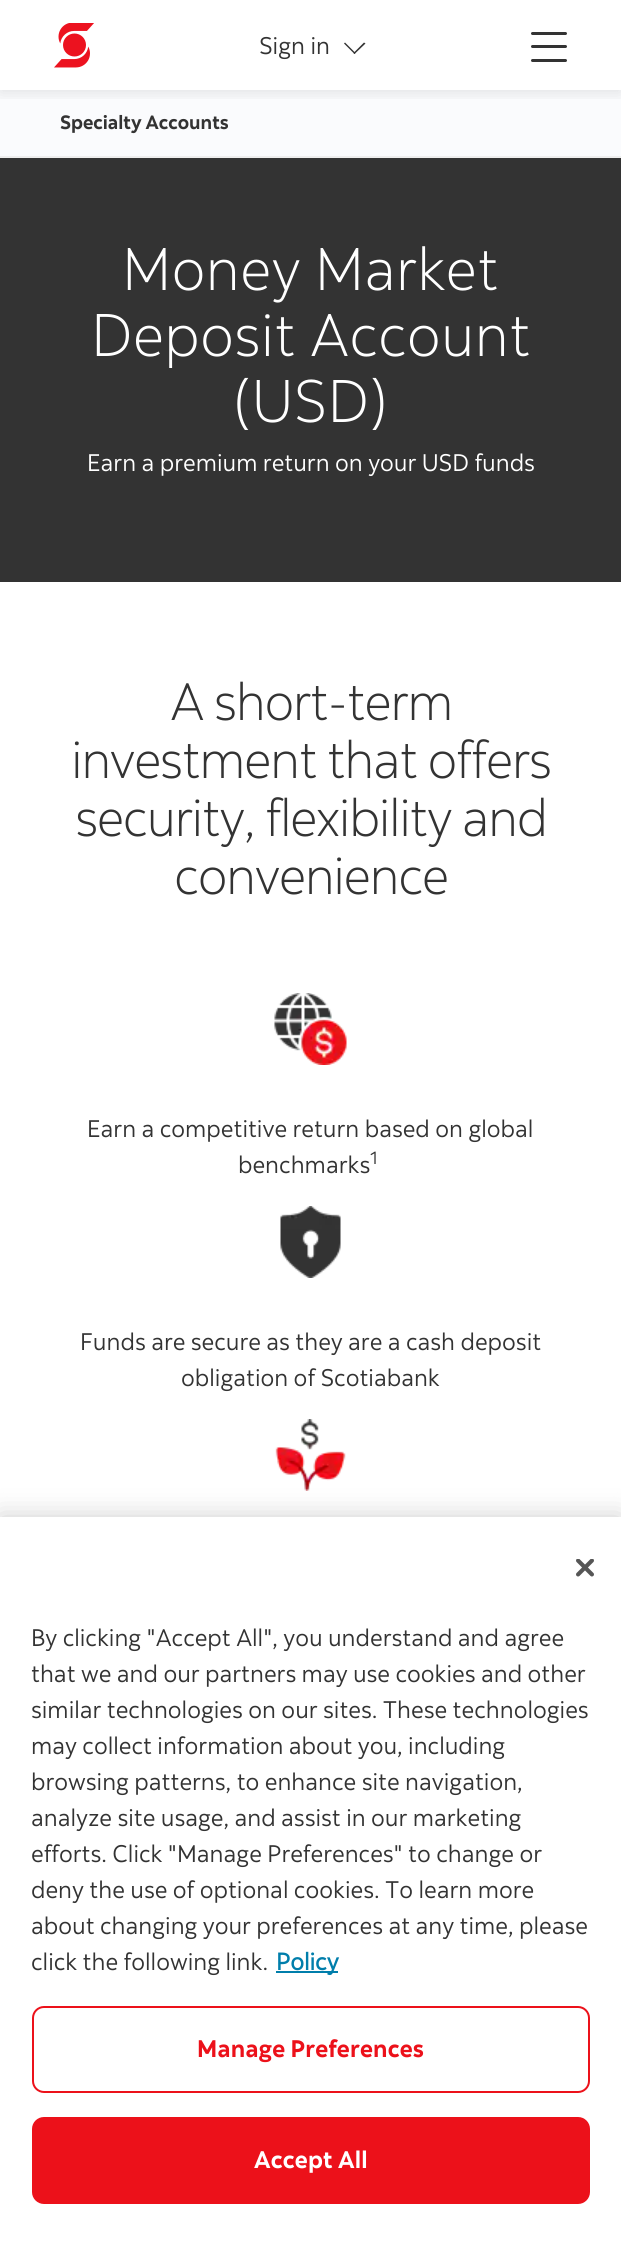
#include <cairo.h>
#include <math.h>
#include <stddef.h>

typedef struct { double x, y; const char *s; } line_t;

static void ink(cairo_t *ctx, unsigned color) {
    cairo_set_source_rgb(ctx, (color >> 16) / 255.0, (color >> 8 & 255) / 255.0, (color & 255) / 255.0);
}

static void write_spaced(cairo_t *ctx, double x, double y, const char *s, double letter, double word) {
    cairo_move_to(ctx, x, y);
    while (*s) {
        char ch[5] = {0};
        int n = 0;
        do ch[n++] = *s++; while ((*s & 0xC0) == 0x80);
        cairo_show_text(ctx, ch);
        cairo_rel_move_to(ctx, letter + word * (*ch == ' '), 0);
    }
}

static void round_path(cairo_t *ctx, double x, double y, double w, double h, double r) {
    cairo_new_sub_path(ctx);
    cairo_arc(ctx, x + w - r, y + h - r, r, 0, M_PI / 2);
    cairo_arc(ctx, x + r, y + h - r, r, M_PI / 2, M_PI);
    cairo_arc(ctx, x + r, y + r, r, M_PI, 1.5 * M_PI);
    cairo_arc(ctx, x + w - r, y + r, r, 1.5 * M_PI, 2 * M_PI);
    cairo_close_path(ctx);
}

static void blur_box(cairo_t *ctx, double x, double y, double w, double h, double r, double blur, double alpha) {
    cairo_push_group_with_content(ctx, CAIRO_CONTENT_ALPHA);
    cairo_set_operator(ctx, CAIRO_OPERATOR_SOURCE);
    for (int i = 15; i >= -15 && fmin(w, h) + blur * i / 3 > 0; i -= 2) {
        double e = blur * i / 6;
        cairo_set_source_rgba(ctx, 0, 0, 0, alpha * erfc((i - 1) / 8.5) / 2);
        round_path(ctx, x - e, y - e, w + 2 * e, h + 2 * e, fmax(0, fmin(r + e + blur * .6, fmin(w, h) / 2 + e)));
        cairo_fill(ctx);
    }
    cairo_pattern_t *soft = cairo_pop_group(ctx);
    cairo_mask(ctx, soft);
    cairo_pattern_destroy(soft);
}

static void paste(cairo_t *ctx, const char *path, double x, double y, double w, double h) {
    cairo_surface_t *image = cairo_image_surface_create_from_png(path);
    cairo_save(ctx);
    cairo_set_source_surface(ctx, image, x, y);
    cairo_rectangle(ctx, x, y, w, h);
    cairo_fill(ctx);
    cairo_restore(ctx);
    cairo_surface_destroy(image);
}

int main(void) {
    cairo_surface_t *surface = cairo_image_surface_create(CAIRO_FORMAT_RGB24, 621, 2268);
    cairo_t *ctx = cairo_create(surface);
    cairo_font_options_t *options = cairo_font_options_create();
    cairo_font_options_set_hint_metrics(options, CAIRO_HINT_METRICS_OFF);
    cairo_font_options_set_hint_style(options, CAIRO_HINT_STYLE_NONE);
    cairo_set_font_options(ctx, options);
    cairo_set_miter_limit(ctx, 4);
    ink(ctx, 0xFFFFFF);
    cairo_paint(ctx);
    ink(ctx, 0xFAFBFD);
    cairo_rectangle(ctx, 0, 90, 621, 66);
    cairo_fill(ctx);
    cairo_save(ctx);
    cairo_rectangle(ctx, 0, 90, 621, 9);
    cairo_clip(ctx);
    ink(ctx, 0x000000);
    blur_box(ctx, 0, 3, 621, 90, 0, 7.5, 0.1);
    cairo_restore(ctx);
    paste(ctx, "media/1.png", 54, 23, 40, 45);
    cairo_select_font_face(ctx, "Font", CAIRO_FONT_SLANT_NORMAL, CAIRO_FONT_WEIGHT_NORMAL);
    cairo_set_font_size(ctx, 24);
    ink(ctx, 0x333333);
    cairo_move_to(ctx, 259, 54);
    cairo_show_text(ctx, "Sign in");
    cairo_new_path(ctx);
    cairo_move_to(ctx, 364, 42.5);
    cairo_line_to(ctx, 365.5, 43.5);
    cairo_line_to(ctx, 354.5, 54);
    cairo_line_to(ctx, 353.5, 53);
    cairo_close_path(ctx);
    cairo_fill(ctx);
    cairo_new_path(ctx);
    cairo_move_to(ctx, 345, 42.5);
    cairo_line_to(ctx, 355.5, 53);
    cairo_line_to(ctx, 354.5, 54);
    cairo_line_to(ctx, 344, 43.5);
    cairo_close_path(ctx);
    cairo_fill(ctx);
    round_path(ctx, 531, 45, 36, 3, 1.5);
    cairo_fill(ctx);
    round_path(ctx, 531, 32, 36, 3, 1.5);
    cairo_fill(ctx);
    round_path(ctx, 531, 59, 36, 3, 1.5);
    cairo_fill(ctx);
    ink(ctx, 0xEEEEEE);
    cairo_rectangle(ctx, 0, 156, 621, 2);
    cairo_fill(ctx);
    cairo_select_font_face(ctx, "Font", CAIRO_FONT_SLANT_NORMAL, CAIRO_FONT_WEIGHT_BOLD);
    cairo_set_font_size(ctx, 19.25);
    ink(ctx, 0x333333);
    cairo_move_to(ctx, 60, 129);
    cairo_show_text(ctx, "Specialty Accounts");
    cairo_rectangle(ctx, 0, 158, 621, 424);
    cairo_fill(ctx);
    cairo_select_font_face(ctx, "Font Light", CAIRO_FONT_SLANT_NORMAL, CAIRO_FONT_WEIGHT_NORMAL);
    cairo_set_font_size(ctx, 60);
    ink(ctx, 0xFFFFFF);
    {
        static const line_t items[] = {
            {122, 290, "Money Market"},
            {91, 356, "Deposit Account"},
            {233, 422, "(USD)"},
        };
        for (size_t i = 0; i < sizeof items / sizeof *items; i++) {
            cairo_move_to(ctx, items[i].x, items[i].y);
            cairo_show_text(ctx, items[i].s);
        }
    }
    cairo_select_font_face(ctx, "Font", CAIRO_FONT_SLANT_NORMAL, CAIRO_FONT_WEIGHT_NORMAL);
    cairo_set_font_size(ctx, 24);
    cairo_move_to(ctx, 87, 471);
    cairo_show_text(ctx, "Earn a premium return on your USD funds");
    cairo_select_font_face(ctx, "Font Light", CAIRO_FONT_SLANT_NORMAL, CAIRO_FONT_WEIGHT_NORMAL);
    cairo_set_font_size(ctx, 52.5);
    ink(ctx, 0x333333);
    {
        static const line_t items[] = {
            {170, 720, "A short-term"},
            {71, 778, "investment that offers"},
            {75, 836, "security, flexibility and"},
            {174, 894, "convenience"},
        };
        for (size_t i = 0; i < sizeof items / sizeof *items; i++) {
            write_spaced(ctx, items[i].x, items[i].y, items[i].s, -1.5, 0);
        }
    }
    paste(ctx, "media/2.png", 274, 993, 73, 72);
    cairo_select_font_face(ctx, "Font", CAIRO_FONT_SLANT_NORMAL, CAIRO_FONT_WEIGHT_NORMAL);
    cairo_set_font_size(ctx, 24);
    cairo_move_to(ctx, 87, 1137);
    cairo_show_text(ctx, "Earn a competitive return based on global");
    cairo_move_to(ctx, 238, 1173);
    cairo_show_text(ctx, "benchmarks");
    cairo_set_font_size(ctx, 18);
    cairo_move_to(ctx, 370, 1164);
    cairo_show_text(ctx, "1");
    paste(ctx, "media/3.png", 280, 1206, 61, 72);
    cairo_set_font_size(ctx, 24);
    cairo_move_to(ctx, 80, 1350);
    cairo_show_text(ctx, "Funds are secure as they are a cash deposit");
    cairo_move_to(ctx, 181, 1386);
    cairo_show_text(ctx, "obligation of Scotiabank");
    paste(ctx, "media/4.png", 275, 1419, 71, 72);
    ink(ctx, 0x000000);
    blur_box(ctx, 0, 1517, 621, 751, 0, 13.5, 0.2);
    ink(ctx, 0xFFFFFF);
    cairo_rectangle(ctx, 0, 1517, 621, 751);
    cairo_fill(ctx);
    paste(ctx, "media/5.png", 576, 1559, 18, 18);
    ink(ctx, 0x333333);
    {
        static const line_t items[] = {
            {31, 1646, "By clicking \"Accept All\", you understand and agree"},
            {31, 1682, "that we and our partners may use cookies and other"},
            {31, 1718, "similar technologies on our sites. These technologies"},
            {31, 1754, "may collect information about you, including"},
            {31, 1790, "browsing patterns, to enhance site navigation,"},
            {31, 1826, "analyze site usage, and assist in our marketing"},
            {31, 1862, "efforts. Click \"Manage Preferences\" to change or"},
            {31, 1898, "deny the use of optional cookies. To learn more"},
            {31, 1934, "about changing your preferences at any time, please"},
            {31, 1970, "click the following link."},
        };
        for (size_t i = 0; i < sizeof items / sizeof *items; i++) {
            cairo_move_to(ctx, items[i].x, items[i].y);
            cairo_show_text(ctx, items[i].s);
        }
    }
    ink(ctx, 0x007EAB);
    cairo_rectangle(ctx, 276, 1971, 62, 2);
    cairo_fill(ctx);
    cairo_select_font_face(ctx, "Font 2", CAIRO_FONT_SLANT_NORMAL, CAIRO_FONT_WEIGHT_BOLD);
    cairo_move_to(ctx, 276, 1970);
    cairo_show_text(ctx, "Policy");
    round_path(ctx, 33, 2007, 556, 85, 11);
    ink(ctx, 0xEC111A);
    cairo_stroke(ctx);
    cairo_select_font_face(ctx, "Font", CAIRO_FONT_SLANT_NORMAL, CAIRO_FONT_WEIGHT_BOLD);
    write_spaced(ctx, 197, 2057, "Manage Preferences", 0.25, 0);
    round_path(ctx, 33, 2118, 556, 85, 11);
    cairo_fill_preserve(ctx);
    cairo_stroke(ctx);
    ink(ctx, 0xFFFFFF);
    write_spaced(ctx, 254, 2168, "Accept All", 0.25, 0);
    cairo_surface_write_to_png(surface, "image.png");
    cairo_font_options_destroy(options);
    cairo_destroy(ctx);
    cairo_surface_destroy(surface);
    return 0;
}
